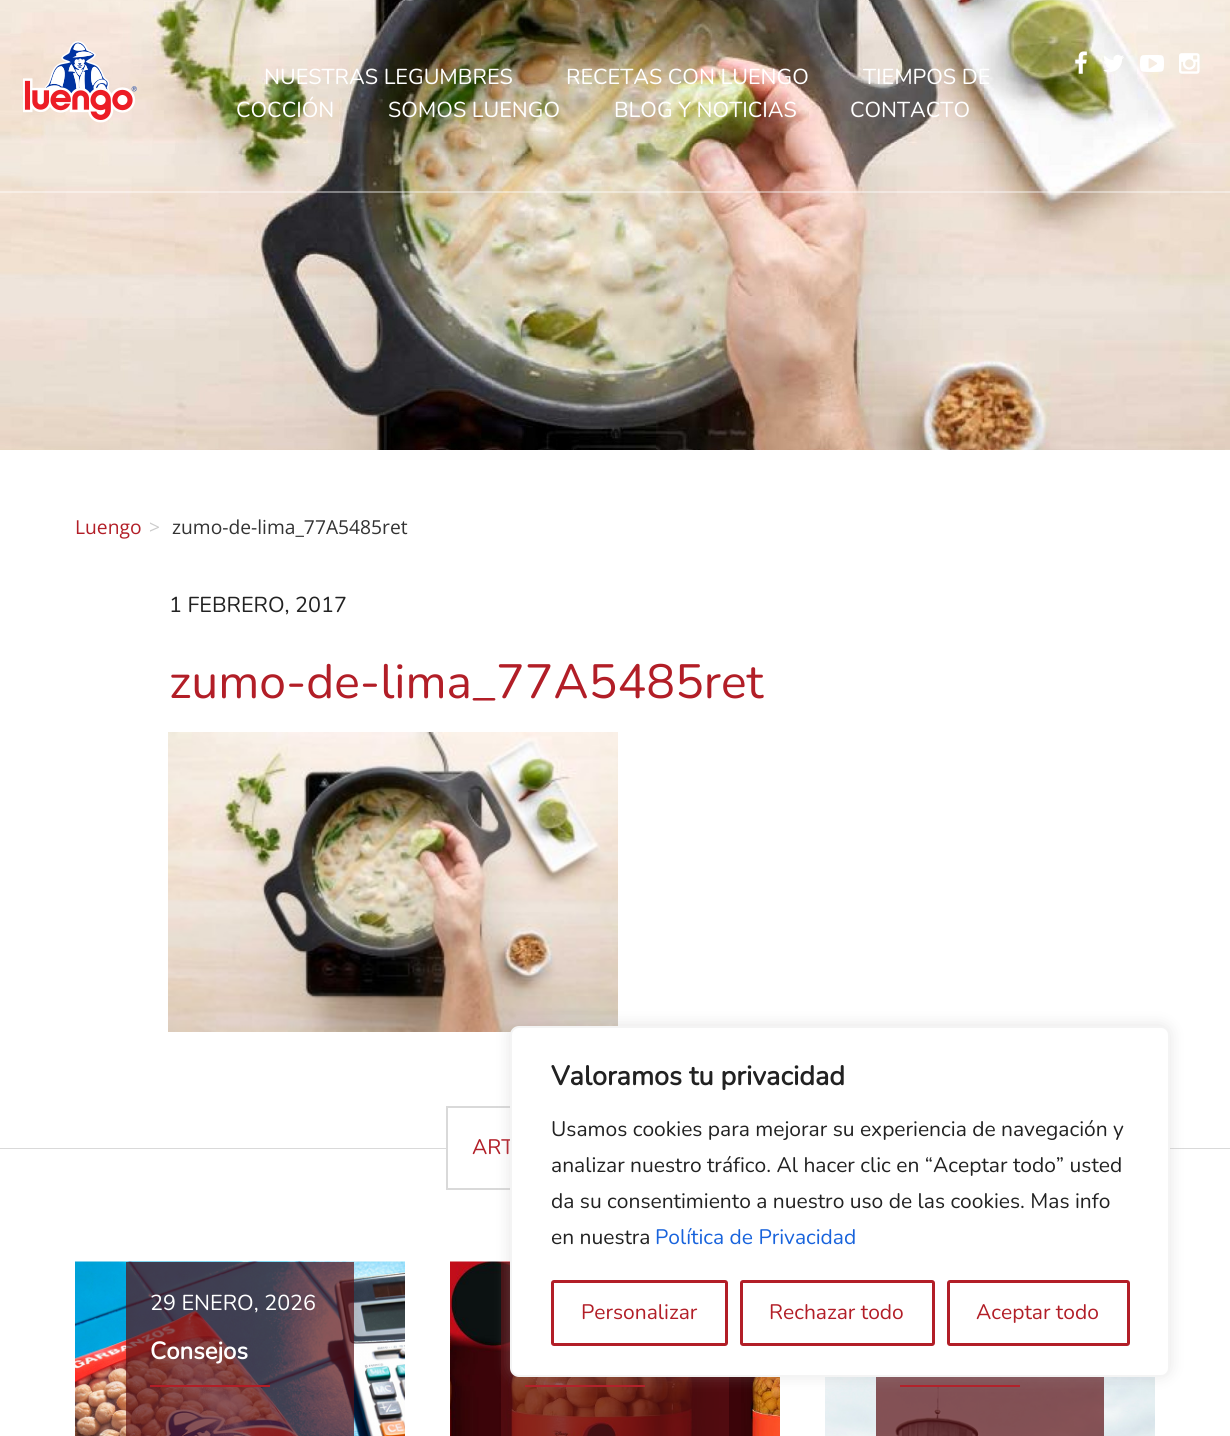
#include <cairo.h>
#include <math.h>
#include <stddef.h>

typedef struct { double x, y; const char *s; } line_t;

static void ink(cairo_t *ctx, unsigned color) {
    cairo_set_source_rgb(ctx, (color >> 16) / 255.0, (color >> 8 & 255) / 255.0, (color & 255) / 255.0);
}

static void round_path(cairo_t *ctx, double x, double y, double w, double h, double r) {
    cairo_new_sub_path(ctx);
    cairo_arc(ctx, x + w - r, y + h - r, r, 0, M_PI / 2);
    cairo_arc(ctx, x + r, y + h - r, r, M_PI / 2, M_PI);
    cairo_arc(ctx, x + r, y + r, r, M_PI, 1.5 * M_PI);
    cairo_arc(ctx, x + w - r, y + r, r, 1.5 * M_PI, 2 * M_PI);
    cairo_close_path(ctx);
}

static void blur_box(cairo_t *ctx, double x, double y, double w, double h, double r, double blur, double alpha) {
    cairo_push_group_with_content(ctx, CAIRO_CONTENT_ALPHA);
    cairo_set_operator(ctx, CAIRO_OPERATOR_SOURCE);
    for (int i = 15; i >= -15 && fmin(w, h) + blur * i / 3 > 0; i -= 2) {
        double e = blur * i / 6;
        cairo_set_source_rgba(ctx, 0, 0, 0, alpha * erfc((i - 1) / 8.5) / 2);
        round_path(ctx, x - e, y - e, w + 2 * e, h + 2 * e, fmax(0, fmin(r + e + blur * .6, fmin(w, h) / 2 + e)));
        cairo_fill(ctx);
    }
    cairo_pattern_t *soft = cairo_pop_group(ctx);
    cairo_mask(ctx, soft);
    cairo_pattern_destroy(soft);
}

static void paste(cairo_t *ctx, const char *path, double x, double y, double w, double h) {
    cairo_surface_t *image = cairo_image_surface_create_from_png(path);
    cairo_save(ctx);
    cairo_set_source_surface(ctx, image, x, y);
    cairo_rectangle(ctx, x, y, w, h);
    cairo_fill(ctx);
    cairo_restore(ctx);
    cairo_surface_destroy(image);
}

int main(void) {
    cairo_surface_t *surface = cairo_image_surface_create(CAIRO_FORMAT_RGB24, 1230, 1436);
    cairo_t *ctx = cairo_create(surface);
    cairo_font_options_t *options = cairo_font_options_create();
    cairo_font_options_set_hint_metrics(options, CAIRO_HINT_METRICS_OFF);
    cairo_font_options_set_hint_style(options, CAIRO_HINT_STYLE_NONE);
    cairo_set_font_options(ctx, options);
    cairo_set_miter_limit(ctx, 4);
    ink(ctx, 0xFFFFFF);
    cairo_paint(ctx);
    paste(ctx, "media/6.png", 0, 0, 1230, 450);
    cairo_set_source_rgba(ctx, 1, 1, 1, 0.4);
    cairo_rectangle(ctx, 0, 191, 1230, 2);
    cairo_fill(ctx);
    paste(ctx, "media/1.png", 23, 41, 114, 82);
    paste(ctx, "media/2.png", 1075, 51, 12, 23);
    paste(ctx, "media/3.png", 1103, 55, 21, 17);
    paste(ctx, "media/4.png", 1140, 55, 24, 17);
    paste(ctx, "media/5.png", 1179, 53, 21, 21);
    cairo_select_font_face(ctx, "Nunito ExtraLight", CAIRO_FONT_SLANT_NORMAL, CAIRO_FONT_WEIGHT_NORMAL);
    cairo_set_font_size(ctx, 21.6);
    ink(ctx, 0xFFFFFF);
    {
        static const line_t items[] = {
            {264, 84, "NUESTRAS LEGUMBRES"},
            {566, 84, "RECETAS CON LUENGO"},
            {863, 84, "TIEMPOS DE"},
            {236, 117, "COCCIÓN"},
            {388, 117, "SOMOS LUENGO"},
            {614, 117, "BLOG Y NOTICIAS"},
            {850, 117, "CONTACTO"},
        };
        for (size_t i = 0; i < sizeof items / sizeof *items; i++) {
            cairo_move_to(ctx, items[i].x, items[i].y);
            cairo_show_text(ctx, items[i].s);
        }
    }
    cairo_select_font_face(ctx, "Open Sans", CAIRO_FONT_SLANT_NORMAL, CAIRO_FONT_WEIGHT_NORMAL);
    cairo_set_font_size(ctx, 19.25);
    ink(ctx, 0xB21E27);
    cairo_move_to(ctx, 75, 534);
    cairo_show_text(ctx, "Luengo");
    ink(ctx, 0xCCCCCC);
    cairo_move_to(ctx, 149, 534);
    cairo_show_text(ctx, ">");
    ink(ctx, 0x333333);
    cairo_move_to(ctx, 172, 534);
    cairo_show_text(ctx, "zumo-de-lima_77A5485ret");
    cairo_select_font_face(ctx, "Nunito ExtraLight", CAIRO_FONT_SLANT_NORMAL, CAIRO_FONT_WEIGHT_NORMAL);
    cairo_set_font_size(ctx, 21.6);
    ink(ctx, 0x222222);
    cairo_move_to(ctx, 169, 612);
    cairo_show_text(ctx, "1 FEBRERO, 2017");
    cairo_set_font_size(ctx, 48);
    ink(ctx, 0xB21E27);
    cairo_move_to(ctx, 169, 698);
    cairo_show_text(ctx, "zumo-de-lima_77A5485ret");
    paste(ctx, "media/7.png", 168, 732, 450, 300);
    ink(ctx, 0xD9D9D9);
    cairo_rectangle(ctx, 0, 1148, 1230, 1);
    cairo_fill(ctx);
    ink(ctx, 0xFFFFFF);
    cairo_rectangle(ctx, 448, 1148, 62, 1);
    cairo_fill(ctx);
    cairo_rectangle(ctx, 447, 1107, 337, 82);
    ink(ctx, 0xD9D9D9);
    cairo_stroke(ctx);
    cairo_set_font_size(ctx, 21);
    ink(ctx, 0xB21E27);
    cairo_move_to(ctx, 472, 1154);
    cairo_show_text(ctx, "ART");
    paste(ctx, "media/8.png", 75, 1261, 330, 175);
    cairo_set_source_rgba(ctx, 0.357, 0.059, 0.078, 0.7);
    cairo_rectangle(ctx, 126, 1262, 228, 174);
    cairo_fill(ctx);
    cairo_set_font_size(ctx, 21.6);
    ink(ctx, 0xFFFFFF);
    cairo_move_to(ctx, 150, 1310);
    cairo_show_text(ctx, "29 ENERO, 2026");
    cairo_select_font_face(ctx, "Nunito", CAIRO_FONT_SLANT_NORMAL, CAIRO_FONT_WEIGHT_BOLD);
    cairo_set_font_size(ctx, 24);
    cairo_move_to(ctx, 150, 1359);
    cairo_show_text(ctx, "Consejos");
    ink(ctx, 0xB21E27);
    cairo_rectangle(ctx, 150, 1385, 120, 2);
    cairo_fill(ctx);
    paste(ctx, "media/9.png", 450, 1261, 330, 175);
    cairo_set_source_rgba(ctx, 0.357, 0.059, 0.078, 0.7);
    cairo_rectangle(ctx, 501, 1262, 228, 174);
    cairo_fill(ctx);
    ink(ctx, 0xB21E27);
    cairo_rectangle(ctx, 525, 1385, 120, 2);
    cairo_fill(ctx);
    paste(ctx, "media/10.png", 825, 1377, 330, 59);
    cairo_set_source_rgba(ctx, 0.357, 0.059, 0.078, 0.7);
    cairo_rectangle(ctx, 876, 1377, 228, 59);
    cairo_fill(ctx);
    ink(ctx, 0xB21E27);
    cairo_rectangle(ctx, 900, 1385, 120, 2);
    cairo_fill(ctx);
    ink(ctx, 0xACABAB);
    blur_box(ctx, 510, 1025, 660, 351, 9, 7.5, 0.3);
    ink(ctx, 0xFFFFFF);
    round_path(ctx, 511, 1027, 658, 349, 8);
    cairo_fill_preserve(ctx);
    ink(ctx, 0xF4F4F4);
    cairo_stroke(ctx);
    cairo_set_font_size(ctx, 27);
    ink(ctx, 0x222222);
    cairo_move_to(ctx, 551, 1085);
    cairo_show_text(ctx, "Valoramos tu privacidad");
    cairo_select_font_face(ctx, "Nunito ExtraLight", CAIRO_FONT_SLANT_NORMAL, CAIRO_FONT_WEIGHT_NORMAL);
    cairo_set_font_size(ctx, 21);
    {
        static const line_t items[] = {
            {551, 1136, "Usamos cookies para mejorar su experiencia de navegación y"},
            {551, 1172, "analizar nuestro tráfico. Al hacer clic en “Aceptar todo” usted"},
            {551, 1208, "da su consentimiento a nuestro uso de las cookies. Mas info"},
            {551, 1244, "en nuestra"},
        };
        for (size_t i = 0; i < sizeof items / sizeof *items; i++) {
            cairo_move_to(ctx, items[i].x, items[i].y);
            cairo_show_text(ctx, items[i].s);
        }
    }
    ink(ctx, 0x1863DC);
    cairo_move_to(ctx, 655, 1244);
    cairo_show_text(ctx, "Política de Privacidad");
    round_path(ctx, 552.5, 1281.5, 174, 63, 1.5);
    ink(ctx, 0xB21E27);
    cairo_set_line_width(ctx, 3);
    cairo_stroke(ctx);
    cairo_move_to(ctx, 581, 1319);
    cairo_show_text(ctx, "Personalizar");
    round_path(ctx, 741.5, 1281.5, 192, 63, 1.5);
    cairo_stroke(ctx);
    cairo_move_to(ctx, 769, 1319);
    cairo_show_text(ctx, "Rechazar todo");
    round_path(ctx, 948.5, 1281.5, 180, 63, 1.5);
    cairo_stroke(ctx);
    cairo_move_to(ctx, 976, 1319);
    cairo_show_text(ctx, "Aceptar todo");
    cairo_surface_write_to_png(surface, "image.png");
    cairo_font_options_destroy(options);
    cairo_destroy(ctx);
    cairo_surface_destroy(surface);
    return 0;
}
